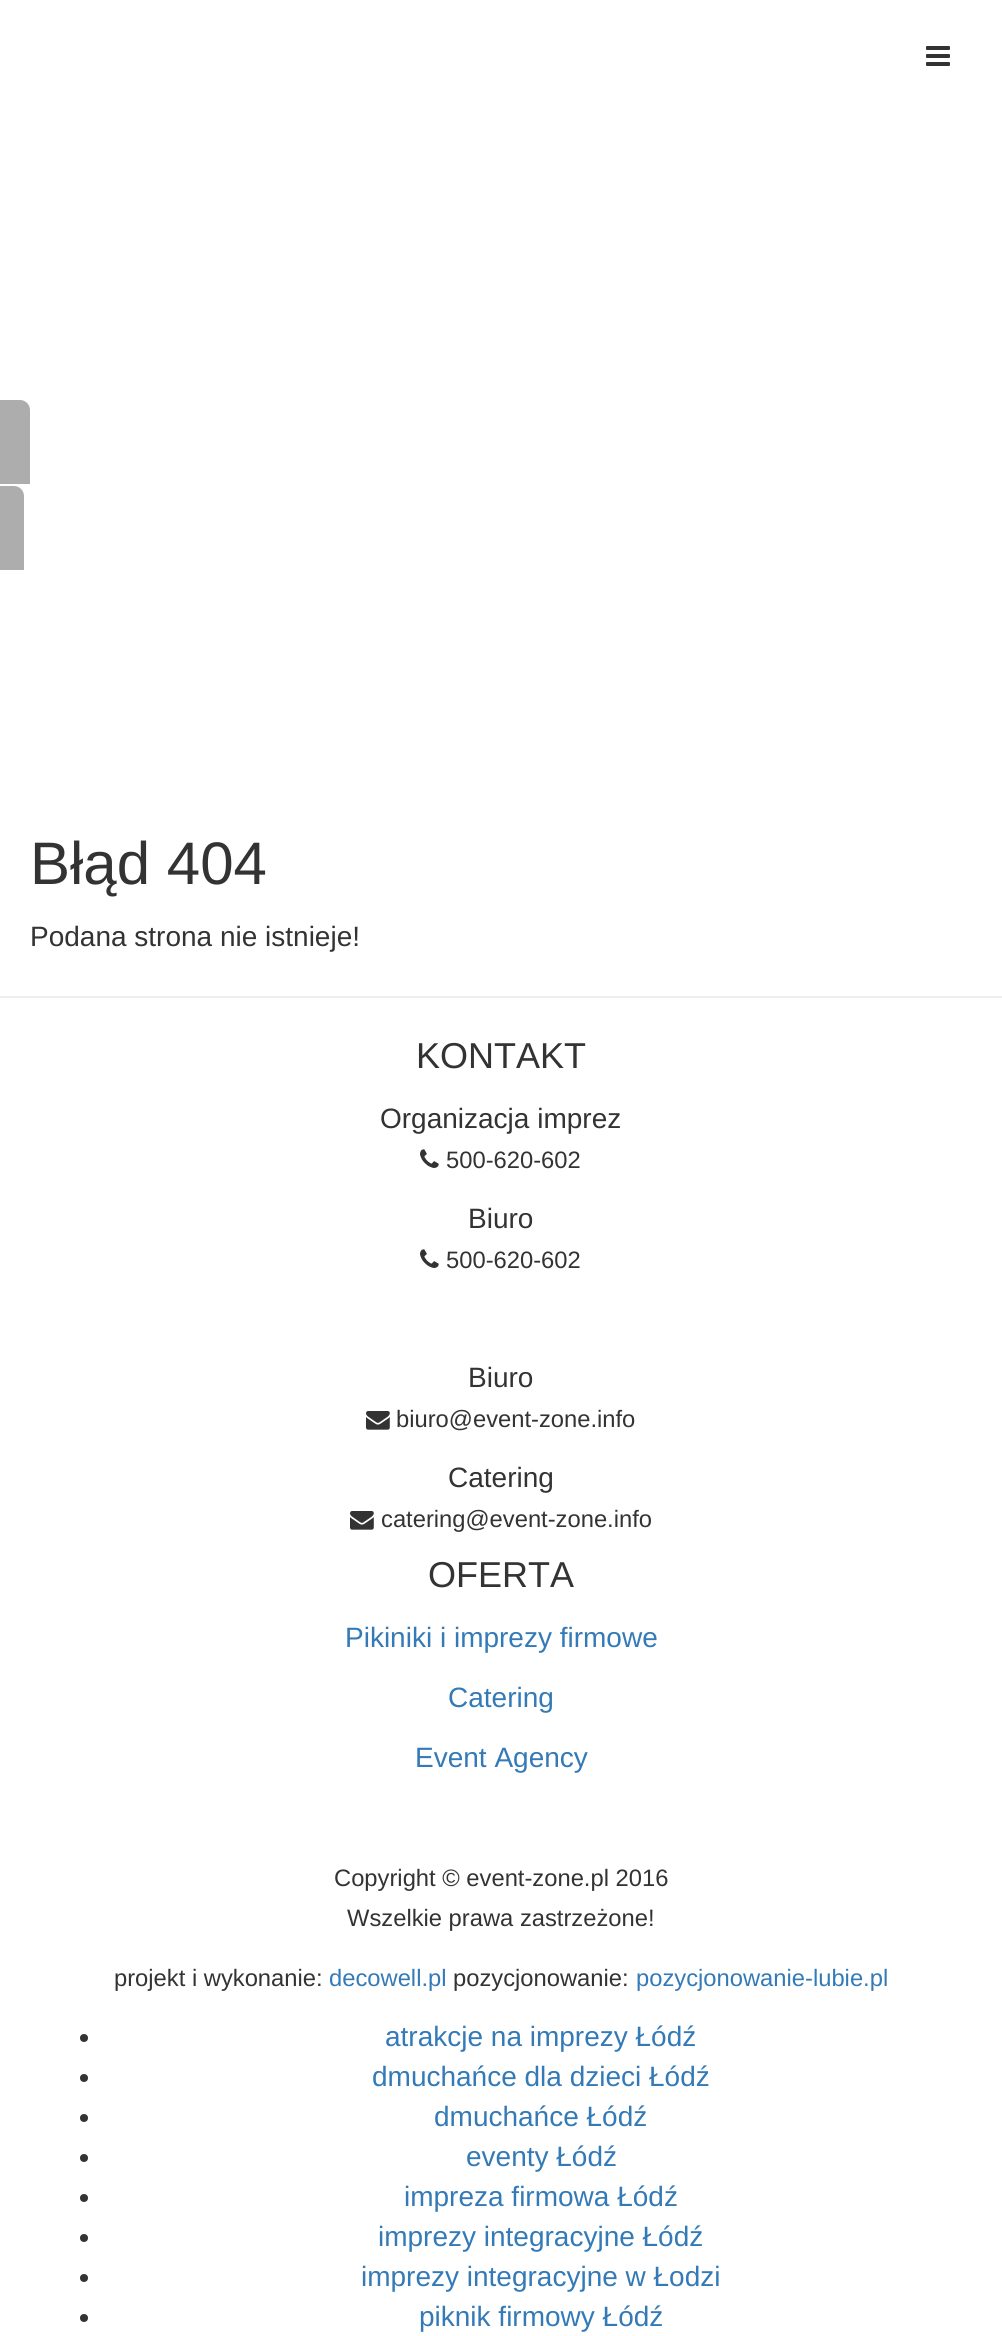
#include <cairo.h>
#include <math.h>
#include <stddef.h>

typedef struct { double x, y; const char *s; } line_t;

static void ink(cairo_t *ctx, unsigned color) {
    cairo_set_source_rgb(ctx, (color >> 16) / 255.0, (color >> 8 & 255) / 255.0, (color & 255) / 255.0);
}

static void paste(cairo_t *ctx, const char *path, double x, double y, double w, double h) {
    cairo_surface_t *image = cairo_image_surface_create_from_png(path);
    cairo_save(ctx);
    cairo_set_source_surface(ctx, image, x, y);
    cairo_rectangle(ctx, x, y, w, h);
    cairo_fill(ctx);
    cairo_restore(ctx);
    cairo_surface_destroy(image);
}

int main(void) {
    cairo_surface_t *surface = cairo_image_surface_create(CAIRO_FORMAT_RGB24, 1002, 2336);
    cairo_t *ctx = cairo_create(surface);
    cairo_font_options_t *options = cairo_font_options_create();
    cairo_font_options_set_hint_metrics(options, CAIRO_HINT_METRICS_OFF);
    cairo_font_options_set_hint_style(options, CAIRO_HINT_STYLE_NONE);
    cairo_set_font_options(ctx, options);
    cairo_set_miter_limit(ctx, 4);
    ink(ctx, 0xFFFFFF);
    cairo_paint(ctx);
    paste(ctx, "media/1.png", 926, 46, 24, 20);
    ink(ctx, 0xADADAD);
    cairo_new_path(ctx);
    cairo_move_to(ctx, 0, 400);
    cairo_line_to(ctx, 20, 400);
    cairo_curve_to(ctx, 25.5, 400, 30, 404.5, 30, 410);
    cairo_line_to(ctx, 30, 484);
    cairo_line_to(ctx, -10, 484);
    cairo_line_to(ctx, -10, 410);
    cairo_curve_to(ctx, -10, 404.5, -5.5, 400, 0, 400);
    cairo_close_path(ctx);
    cairo_fill(ctx);
    cairo_new_path(ctx);
    cairo_move_to(ctx, 0, 486);
    cairo_line_to(ctx, 14, 486);
    cairo_curve_to(ctx, 19.5, 486, 24, 490.5, 24, 496);
    cairo_line_to(ctx, 24, 570);
    cairo_line_to(ctx, -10, 570);
    cairo_line_to(ctx, -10, 496);
    cairo_curve_to(ctx, -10, 490.5, -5.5, 486, 0, 486);
    cairo_close_path(ctx);
    cairo_fill(ctx);
    cairo_select_font_face(ctx, "Liberation Sans", CAIRO_FONT_SLANT_NORMAL, CAIRO_FONT_WEIGHT_NORMAL);
    cairo_set_font_size(ctx, 60);
    ink(ctx, 0x333333);
    cairo_move_to(ctx, 30, 884);
    cairo_show_text(ctx, "Błąd 404");
    cairo_set_font_size(ctx, 28);
    cairo_move_to(ctx, 30, 946);
    cairo_show_text(ctx, "Podana strona nie istnieje!");
    ink(ctx, 0xEEEEEE);
    cairo_rectangle(ctx, 0, 996, 1002, 2);
    cairo_fill(ctx);
    cairo_set_font_size(ctx, 36);
    ink(ctx, 0x333333);
    cairo_move_to(ctx, 416, 1068);
    cairo_show_text(ctx, "KONTAKT");
    cairo_set_font_size(ctx, 28);
    cairo_move_to(ctx, 380, 1128);
    cairo_show_text(ctx, "Organizacja imprez");
    paste(ctx, "media/2.png", 420, 1149, 19, 19);
    cairo_set_font_size(ctx, 23.75);
    cairo_move_to(ctx, 446, 1168);
    cairo_show_text(ctx, "500-620-602");
    cairo_set_font_size(ctx, 28);
    cairo_move_to(ctx, 468, 1228);
    cairo_show_text(ctx, "Biuro");
    paste(ctx, "media/2.png", 420, 1249, 19, 19);
    cairo_set_font_size(ctx, 23.75);
    cairo_move_to(ctx, 446, 1268);
    cairo_show_text(ctx, "500-620-602");
    cairo_set_font_size(ctx, 28);
    cairo_move_to(ctx, 468, 1387);
    cairo_show_text(ctx, "Biuro");
    paste(ctx, "media/3.png", 366, 1411, 24, 19);
    cairo_set_font_size(ctx, 23.75);
    cairo_move_to(ctx, 396, 1427);
    cairo_show_text(ctx, "biuro@event-zone.info");
    cairo_set_font_size(ctx, 28);
    cairo_move_to(ctx, 448, 1487);
    cairo_show_text(ctx, "Catering");
    paste(ctx, "media/3.png", 350, 1511, 24, 19);
    cairo_set_font_size(ctx, 23.75);
    cairo_move_to(ctx, 381, 1527);
    cairo_show_text(ctx, "catering@event-zone.info");
    cairo_set_font_size(ctx, 36);
    cairo_move_to(ctx, 428, 1587);
    cairo_show_text(ctx, "OFERTA");
    cairo_set_font_size(ctx, 28);
    ink(ctx, 0x337AB7);
    {
        static const line_t items[] = {
            {345, 1647, "Pikiniki i imprezy firmowe"},
            {448, 1707, "Catering"},
            {415, 1767, "Event Agency"},
        };
        for (size_t i = 0; i < sizeof items / sizeof *items; i++) {
            cairo_move_to(ctx, items[i].x, items[i].y);
            cairo_show_text(ctx, items[i].s);
        }
    }
    cairo_set_font_size(ctx, 23.75);
    ink(ctx, 0x333333);
    {
        static const line_t items[] = {
            {334, 1886, "Copyright © event-zone.pl 2016"},
            {347, 1926, "Wszelkie prawa zastrzeżone!"},
            {114, 1986, "projekt i wykonanie:"},
        };
        for (size_t i = 0; i < sizeof items / sizeof *items; i++) {
            cairo_move_to(ctx, items[i].x, items[i].y);
            cairo_show_text(ctx, items[i].s);
        }
    }
    ink(ctx, 0x337AB7);
    cairo_move_to(ctx, 329, 1986);
    cairo_show_text(ctx, "decowell.pl");
    ink(ctx, 0x333333);
    cairo_move_to(ctx, 453, 1986);
    cairo_show_text(ctx, "pozycjonowanie:");
    ink(ctx, 0x337AB7);
    cairo_move_to(ctx, 636, 1986);
    cairo_show_text(ctx, "pozycjonowanie-lubie.pl");
    ink(ctx, 0x333333);
    cairo_new_path(ctx);
    cairo_arc(ctx, 84, 2038, 4, 0, 2 * M_PI);
    cairo_fill(ctx);
    cairo_set_font_size(ctx, 28);
    ink(ctx, 0x337AB7);
    cairo_move_to(ctx, 385, 2046);
    cairo_show_text(ctx, "atrakcje na imprezy Łódź");
    ink(ctx, 0x333333);
    cairo_new_path(ctx);
    cairo_arc(ctx, 84, 2078, 4, 0, 2 * M_PI);
    cairo_fill(ctx);
    ink(ctx, 0x337AB7);
    cairo_move_to(ctx, 372, 2086);
    cairo_show_text(ctx, "dmuchańce dla dzieci Łódź");
    ink(ctx, 0x333333);
    cairo_new_path(ctx);
    cairo_arc(ctx, 84, 2118, 4, 0, 2 * M_PI);
    cairo_fill(ctx);
    ink(ctx, 0x337AB7);
    cairo_move_to(ctx, 434, 2126);
    cairo_show_text(ctx, "dmuchańce Łódź");
    ink(ctx, 0x333333);
    cairo_new_path(ctx);
    cairo_arc(ctx, 84, 2158, 4, 0, 2 * M_PI);
    cairo_fill(ctx);
    ink(ctx, 0x337AB7);
    cairo_move_to(ctx, 466, 2166);
    cairo_show_text(ctx, "eventy Łódź");
    ink(ctx, 0x333333);
    cairo_new_path(ctx);
    cairo_arc(ctx, 84, 2198, 4, 0, 2 * M_PI);
    cairo_fill(ctx);
    ink(ctx, 0x337AB7);
    cairo_move_to(ctx, 404, 2206);
    cairo_show_text(ctx, "impreza firmowa Łódź");
    ink(ctx, 0x333333);
    cairo_new_path(ctx);
    cairo_arc(ctx, 84, 2238, 4, 0, 2 * M_PI);
    cairo_fill(ctx);
    ink(ctx, 0x337AB7);
    cairo_move_to(ctx, 378, 2246);
    cairo_show_text(ctx, "imprezy integracyjne Łódź");
    ink(ctx, 0x333333);
    cairo_new_path(ctx);
    cairo_arc(ctx, 84, 2278, 4, 0, 2 * M_PI);
    cairo_fill(ctx);
    ink(ctx, 0x337AB7);
    cairo_move_to(ctx, 361, 2286);
    cairo_show_text(ctx, "imprezy integracyjne w Łodzi");
    ink(ctx, 0x333333);
    cairo_new_path(ctx);
    cairo_arc(ctx, 84, 2318, 4, 0, 2 * M_PI);
    cairo_fill(ctx);
    ink(ctx, 0x337AB7);
    cairo_move_to(ctx, 419, 2326);
    cairo_show_text(ctx, "piknik firmowy Łódź");
    cairo_surface_write_to_png(surface, "image.png");
    cairo_font_options_destroy(options);
    cairo_destroy(ctx);
    cairo_surface_destroy(surface);
    return 0;
}
